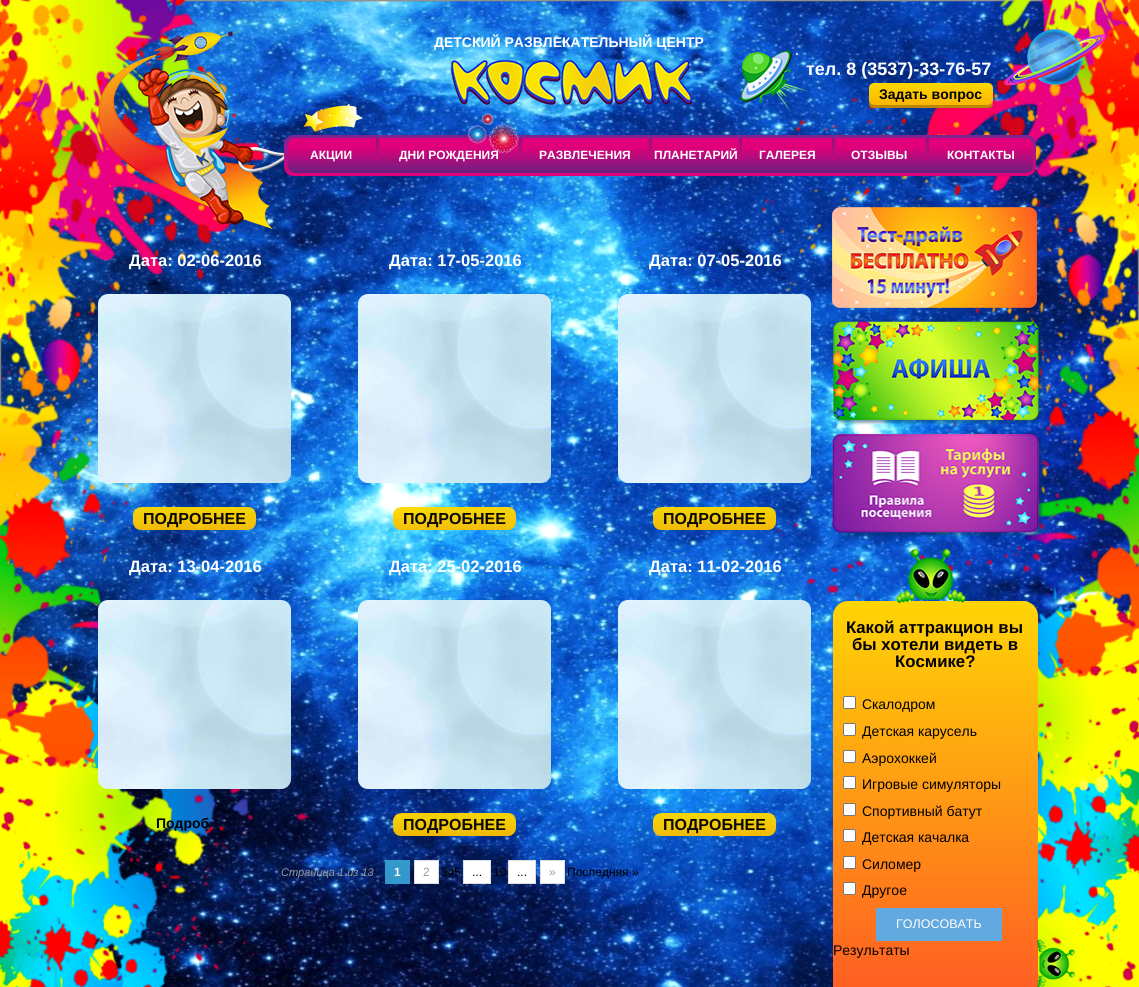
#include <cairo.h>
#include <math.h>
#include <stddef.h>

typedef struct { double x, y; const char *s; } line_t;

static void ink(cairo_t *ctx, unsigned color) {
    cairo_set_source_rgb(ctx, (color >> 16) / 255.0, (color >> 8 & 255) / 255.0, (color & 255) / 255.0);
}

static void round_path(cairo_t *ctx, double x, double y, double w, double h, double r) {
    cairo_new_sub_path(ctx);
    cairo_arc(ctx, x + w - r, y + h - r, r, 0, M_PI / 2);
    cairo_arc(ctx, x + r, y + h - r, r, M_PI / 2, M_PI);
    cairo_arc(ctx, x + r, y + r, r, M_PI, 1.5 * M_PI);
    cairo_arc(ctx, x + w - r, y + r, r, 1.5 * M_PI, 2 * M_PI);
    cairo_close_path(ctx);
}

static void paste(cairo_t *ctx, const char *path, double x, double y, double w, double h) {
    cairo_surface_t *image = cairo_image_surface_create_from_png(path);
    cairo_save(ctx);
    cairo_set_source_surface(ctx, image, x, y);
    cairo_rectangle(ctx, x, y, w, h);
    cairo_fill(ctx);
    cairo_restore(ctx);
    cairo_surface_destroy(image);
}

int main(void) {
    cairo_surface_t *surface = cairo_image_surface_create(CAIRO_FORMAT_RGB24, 1139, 987);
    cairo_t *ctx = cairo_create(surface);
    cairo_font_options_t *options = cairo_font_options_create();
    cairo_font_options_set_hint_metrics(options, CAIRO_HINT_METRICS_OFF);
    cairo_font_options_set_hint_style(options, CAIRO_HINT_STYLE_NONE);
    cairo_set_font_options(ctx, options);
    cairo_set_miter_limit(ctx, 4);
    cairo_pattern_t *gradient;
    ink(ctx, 0xFFFFFF);
    cairo_paint(ctx);
    paste(ctx, "media/1.png", 0, 0, 1139, 987);
    paste(ctx, "media/2.png", 98, 30, 186, 200);
    cairo_select_font_face(ctx, "Liberation Sans", CAIRO_FONT_SLANT_NORMAL, CAIRO_FONT_WEIGHT_BOLD);
    cairo_set_font_size(ctx, 14);
    ink(ctx, 0xFFFFFF);
    cairo_move_to(ctx, 434, 47);
    cairo_show_text(ctx, "ДЕТСКИЙ РАЗВЛЕКАТЕЛЬНЫЙ ЦЕНТР");
    paste(ctx, "media/3.png", 1004, 29, 103, 57);
    paste(ctx, "media/4.png", 450, 59, 243, 46);
    paste(ctx, "media/5.png", 740, 50, 68, 63);
    cairo_set_font_size(ctx, 18);
    cairo_move_to(ctx, 806, 75);
    cairo_show_text(ctx, "тел. 8 (3537)-33-76-57");
    ink(ctx, 0xBA8707);
    cairo_new_path(ctx);
    cairo_move_to(ctx, 869, 100);
    cairo_line_to(ctx, 869, 103);
    cairo_curve_to(ctx, 869, 106, 871, 108, 874, 108);
    cairo_line_to(ctx, 988, 108);
    cairo_curve_to(ctx, 991, 108, 993, 106, 993, 103);
    cairo_line_to(ctx, 993, 100);
    cairo_curve_to(ctx, 993, 103, 991, 105, 988, 105);
    cairo_line_to(ctx, 874, 105);
    cairo_curve_to(ctx, 871, 105, 869, 103, 869, 100);
    cairo_close_path(ctx);
    cairo_fill(ctx);
    gradient = cairo_pattern_create_linear(931, 83, 931, 105);
    cairo_pattern_add_color_stop_rgba(gradient, 0, 0.992, 0.847, 0, 1);
    cairo_pattern_add_color_stop_rgba(gradient, 1, 0.984, 0.714, 0, 1);
    cairo_set_source(ctx, gradient);
    cairo_pattern_destroy(gradient);
    round_path(ctx, 869, 83, 124, 22, 5);
    cairo_fill(ctx);
    cairo_set_font_size(ctx, 14);
    ink(ctx, 0x000000);
    cairo_move_to(ctx, 879, 99);
    cairo_show_text(ctx, "Задать вопрос");
    paste(ctx, "media/6.png", 303, 103, 60, 29);
    gradient = cairo_pattern_create_linear(660, 176, 660, 135);
    cairo_pattern_add_color_stop_rgba(gradient, 0.02, 0.882, 0, 0.478, 1);
    cairo_pattern_add_color_stop_rgba(gradient, 1, 0.475, 0.149, 0.573, 1);
    cairo_set_source(ctx, gradient);
    cairo_pattern_destroy(gradient);
    cairo_new_path(ctx);
    cairo_move_to(ctx, 1026, 176);
    cairo_line_to(ctx, 294, 176);
    cairo_curve_to(ctx, 288, 176, 284, 172, 284, 166);
    cairo_line_to(ctx, 284, 145);
    cairo_curve_to(ctx, 284, 139, 288, 135, 294, 135);
    cairo_line_to(ctx, 1026, 135);
    cairo_curve_to(ctx, 1032, 135, 1036, 139, 1036, 145);
    cairo_line_to(ctx, 1036, 166);
    cairo_curve_to(ctx, 1036, 172, 1032, 176, 1026, 176);
    cairo_close_path(ctx);
    cairo_fill(ctx);
    gradient = cairo_pattern_create_linear(661, 138, 661, 173);
    cairo_pattern_add_color_stop_rgba(gradient, 0.26, 0.882, 0, 0.478, 1);
    cairo_pattern_add_color_stop_rgba(gradient, 1, 0.416, 0.125, 0.502, 1);
    cairo_set_source(ctx, gradient);
    cairo_pattern_destroy(gradient);
    round_path(ctx, 288, 138, 745, 35, 7);
    cairo_fill(ctx);
    cairo_set_font_size(ctx, 12);
    ink(ctx, 0xFFFFFF);
    cairo_move_to(ctx, 399, 159);
    cairo_show_text(ctx, "ДНИ РОЖДЕНИЯ");
    paste(ctx, "media/7.png", 468, 113, 51, 41);
    cairo_move_to(ctx, 654, 159);
    cairo_show_text(ctx, "ПЛАНЕТАРИЙ");
    cairo_move_to(ctx, 310, 159);
    cairo_show_text(ctx, "АКЦИИ");
    paste(ctx, "media/8.png", 376, 138, 3, 22);
    paste(ctx, "media/8.png", 519, 138, 3, 22);
    paste(ctx, "media/8.png", 649, 138, 3, 22);
    paste(ctx, "media/8.png", 739, 138, 3, 22);
    cairo_move_to(ctx, 759, 159);
    cairo_show_text(ctx, "ГАЛЕРЕЯ");
    paste(ctx, "media/8.png", 832, 138, 3, 22);
    paste(ctx, "media/8.png", 926, 138, 3, 22);
    {
        static const line_t items[] = {
            {539, 159, "РАЗВЛЕЧЕНИЯ"},
            {851, 159, "ОТЗЫВЫ"},
            {947, 159, "КОНТАКТЫ"},
        };
        for (size_t i = 0; i < sizeof items / sizeof *items; i++) {
            cairo_move_to(ctx, items[i].x, items[i].y);
            cairo_show_text(ctx, items[i].s);
        }
    }
    cairo_set_font_size(ctx, 16.5);
    cairo_move_to(ctx, 129, 266);
    cairo_show_text(ctx, "Дата: 02-06-2016");
    paste(ctx, "media/9.png", 98, 294, 193, 189);
    paste(ctx, "media/10.png", 133, 507, 123, 23);
    cairo_set_font_size(ctx, 16);
    ink(ctx, 0x0A0800);
    cairo_move_to(ctx, 143, 524);
    cairo_show_text(ctx, "ПОДРОБНЕЕ");
    cairo_set_font_size(ctx, 16.5);
    ink(ctx, 0xFFFFFF);
    cairo_move_to(ctx, 389, 266);
    cairo_show_text(ctx, "Дата: 17-05-2016");
    paste(ctx, "media/11.png", 358, 294, 193, 189);
    paste(ctx, "media/12.png", 393, 507, 123, 23);
    cairo_set_font_size(ctx, 16);
    ink(ctx, 0x0A0800);
    cairo_move_to(ctx, 403, 524);
    cairo_show_text(ctx, "ПОДРОБНЕЕ");
    cairo_set_font_size(ctx, 16.5);
    ink(ctx, 0xFFFFFF);
    cairo_move_to(ctx, 649, 266);
    cairo_show_text(ctx, "Дата: 07-05-2016");
    paste(ctx, "media/13.png", 618, 294, 193, 189);
    paste(ctx, "media/14.png", 653, 507, 123, 23);
    cairo_set_font_size(ctx, 16);
    ink(ctx, 0x0A0800);
    cairo_move_to(ctx, 663, 524);
    cairo_show_text(ctx, "ПОДРОБНЕЕ");
    cairo_set_font_size(ctx, 16.5);
    ink(ctx, 0xFFFFFF);
    cairo_move_to(ctx, 129, 572);
    cairo_show_text(ctx, "Дата: 13-04-2016");
    paste(ctx, "media/15.png", 98, 600, 193, 189);
    cairo_set_font_size(ctx, 14);
    ink(ctx, 0x000000);
    cairo_move_to(ctx, 156, 828);
    cairo_show_text(ctx, "Подроб");
    cairo_set_font_size(ctx, 16.5);
    ink(ctx, 0xFFFFFF);
    cairo_move_to(ctx, 389, 572);
    cairo_show_text(ctx, "Дата: 25-02-2016");
    paste(ctx, "media/16.png", 358, 600, 193, 189);
    paste(ctx, "media/17.png", 393, 813, 123, 23);
    cairo_set_font_size(ctx, 16);
    ink(ctx, 0x0A0800);
    cairo_move_to(ctx, 403, 830);
    cairo_show_text(ctx, "ПОДРОБНЕЕ");
    cairo_set_font_size(ctx, 16.5);
    ink(ctx, 0xFFFFFF);
    cairo_move_to(ctx, 649, 572);
    cairo_show_text(ctx, "Дата: 11-02-2016");
    paste(ctx, "media/18.png", 618, 600, 193, 189);
    paste(ctx, "media/19.png", 653, 813, 123, 23);
    cairo_set_font_size(ctx, 16);
    ink(ctx, 0x0A0800);
    cairo_move_to(ctx, 663, 830);
    cairo_show_text(ctx, "ПОДРОБНЕЕ");
    cairo_select_font_face(ctx, "Liberation Sans", CAIRO_FONT_SLANT_ITALIC, CAIRO_FONT_WEIGHT_NORMAL);
    cairo_set_font_size(ctx, 11);
    ink(ctx, 0x999999);
    cairo_move_to(ctx, 281, 876);
    cairo_show_text(ctx, "Страница 1 из 13");
    ink(ctx, 0x3399CC);
    cairo_rectangle(ctx, 385, 860, 25, 24);
    cairo_fill(ctx);
    cairo_select_font_face(ctx, "Liberation Sans", CAIRO_FONT_SLANT_NORMAL, CAIRO_FONT_WEIGHT_BOLD);
    cairo_set_font_size(ctx, 12);
    ink(ctx, 0xFFFFFF);
    cairo_move_to(ctx, 394, 876);
    cairo_show_text(ctx, "1");
    cairo_rectangle(ctx, 414.5, 860.5, 24, 23);
    cairo_fill_preserve(ctx);
    ink(ctx, 0xDDDDDD);
    cairo_set_line_width(ctx, 1);
    cairo_stroke(ctx);
    cairo_select_font_face(ctx, "Liberation Sans", CAIRO_FONT_SLANT_NORMAL, CAIRO_FONT_WEIGHT_NORMAL);
    ink(ctx, 0x999999);
    cairo_move_to(ctx, 423, 876);
    cairo_show_text(ctx, "2");
    ink(ctx, 0x000000);
    cairo_move_to(ctx, 441, 876);
    cairo_show_text(ctx, "345");
    ink(ctx, 0xFFFFFF);
    cairo_rectangle(ctx, 463.5, 860.5, 27, 23);
    cairo_fill_preserve(ctx);
    ink(ctx, 0xDDDDDD);
    cairo_stroke(ctx);
    ink(ctx, 0x000000);
    cairo_move_to(ctx, 472, 876);
    cairo_show_text(ctx, "...");
    cairo_move_to(ctx, 493, 876);
    cairo_show_text(ctx, "10");
    ink(ctx, 0xFFFFFF);
    cairo_rectangle(ctx, 508.5, 860.5, 27, 23);
    cairo_fill_preserve(ctx);
    ink(ctx, 0xDDDDDD);
    cairo_stroke(ctx);
    ink(ctx, 0x000000);
    cairo_move_to(ctx, 517, 876);
    cairo_show_text(ctx, "...");
    ink(ctx, 0xFFFFFF);
    cairo_rectangle(ctx, 540.5, 860.5, 24, 23);
    cairo_fill_preserve(ctx);
    ink(ctx, 0xDDDDDD);
    cairo_stroke(ctx);
    ink(ctx, 0x999999);
    cairo_move_to(ctx, 549, 876);
    cairo_show_text(ctx, "»");
    ink(ctx, 0x000000);
    cairo_move_to(ctx, 567, 876);
    cairo_show_text(ctx, "Последняя »");
    paste(ctx, "media/20.png", 832, 207, 205, 101);
    paste(ctx, "media/21.png", 833, 321, 210, 104);
    paste(ctx, "media/22.png", 832, 433, 212, 104);
    gradient = cairo_pattern_create_linear(936, 601, 936, 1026);
    cairo_pattern_add_color_stop_rgba(gradient, 0, 1, 0.835, 0.02, 1);
    cairo_pattern_add_color_stop_rgba(gradient, 1, 1, 0.325, 0.149, 1);
    cairo_set_source(ctx, gradient);
    cairo_pattern_destroy(gradient);
    round_path(ctx, 833, 601, 205, 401, 15);
    cairo_fill(ctx);
    paste(ctx, "media/23.png", 896, 549, 70, 55);
    cairo_select_font_face(ctx, "Liberation Sans", CAIRO_FONT_SLANT_NORMAL, CAIRO_FONT_WEIGHT_BOLD);
    cairo_set_font_size(ctx, 16.75);
    ink(ctx, 0x000000);
    {
        static const line_t items[] = {
            {846, 633, "Какой аттракцион вы"},
            {852, 650, "бы хотели видеть в"},
            {895, 667, "Космике?"},
        };
        for (size_t i = 0; i < sizeof items / sizeof *items; i++) {
            cairo_move_to(ctx, items[i].x, items[i].y);
            cairo_show_text(ctx, items[i].s);
        }
    }
    ink(ctx, 0xFFFFFF);
    round_path(ctx, 843.5, 696.5, 12, 12, 1.5);
    cairo_fill_preserve(ctx);
    ink(ctx, 0x767676);
    cairo_stroke(ctx);
    cairo_select_font_face(ctx, "Liberation Sans", CAIRO_FONT_SLANT_NORMAL, CAIRO_FONT_WEIGHT_NORMAL);
    cairo_set_font_size(ctx, 14);
    ink(ctx, 0x000000);
    cairo_move_to(ctx, 862, 709);
    cairo_show_text(ctx, "Скалодром");
    ink(ctx, 0xFFFFFF);
    round_path(ctx, 843.5, 723.5, 12, 12, 1.5);
    cairo_fill_preserve(ctx);
    ink(ctx, 0x767676);
    cairo_stroke(ctx);
    ink(ctx, 0x000000);
    cairo_move_to(ctx, 862, 736);
    cairo_show_text(ctx, "Детская карусель");
    ink(ctx, 0xFFFFFF);
    round_path(ctx, 843.5, 750.5, 12, 12, 1.5);
    cairo_fill_preserve(ctx);
    ink(ctx, 0x767676);
    cairo_stroke(ctx);
    ink(ctx, 0x000000);
    cairo_move_to(ctx, 862, 763);
    cairo_show_text(ctx, "Аэрохоккей");
    ink(ctx, 0xFFFFFF);
    round_path(ctx, 843.5, 776.5, 12, 12, 1.5);
    cairo_fill_preserve(ctx);
    ink(ctx, 0x767676);
    cairo_stroke(ctx);
    ink(ctx, 0x000000);
    cairo_move_to(ctx, 862, 789);
    cairo_show_text(ctx, "Игровые симуляторы");
    ink(ctx, 0xFFFFFF);
    round_path(ctx, 843.5, 803.5, 12, 12, 1.5);
    cairo_fill_preserve(ctx);
    ink(ctx, 0x767676);
    cairo_stroke(ctx);
    ink(ctx, 0x000000);
    cairo_move_to(ctx, 862, 816);
    cairo_show_text(ctx, "Спортивный батут");
    ink(ctx, 0xFFFFFF);
    round_path(ctx, 843.5, 829.5, 12, 12, 1.5);
    cairo_fill_preserve(ctx);
    ink(ctx, 0x767676);
    cairo_stroke(ctx);
    ink(ctx, 0x000000);
    cairo_move_to(ctx, 862, 842);
    cairo_show_text(ctx, "Детская качалка");
    ink(ctx, 0xFFFFFF);
    round_path(ctx, 843.5, 856.5, 12, 12, 1.5);
    cairo_fill_preserve(ctx);
    ink(ctx, 0x767676);
    cairo_stroke(ctx);
    ink(ctx, 0x000000);
    cairo_move_to(ctx, 862, 869);
    cairo_show_text(ctx, "Силомер");
    ink(ctx, 0xFFFFFF);
    round_path(ctx, 843.5, 882.5, 12, 12, 1.5);
    cairo_fill_preserve(ctx);
    ink(ctx, 0x767676);
    cairo_stroke(ctx);
    ink(ctx, 0x000000);
    cairo_move_to(ctx, 862, 895);
    cairo_show_text(ctx, "Другое");
    ink(ctx, 0x61A9DE);
    cairo_rectangle(ctx, 876, 908, 126, 33);
    cairo_fill(ctx);
    cairo_set_font_size(ctx, 12.5);
    ink(ctx, 0xFFFFFF);
    cairo_move_to(ctx, 896, 928);
    cairo_show_text(ctx, "ГОЛОСОВАТЬ");
    cairo_set_font_size(ctx, 14);
    ink(ctx, 0x000000);
    cairo_move_to(ctx, 833, 955);
    cairo_show_text(ctx, "Результаты");
    paste(ctx, "media/24.png", 1037, 939, 38, 48);
    cairo_surface_write_to_png(surface, "image.png");
    cairo_font_options_destroy(options);
    cairo_destroy(ctx);
    cairo_surface_destroy(surface);
    return 0;
}
